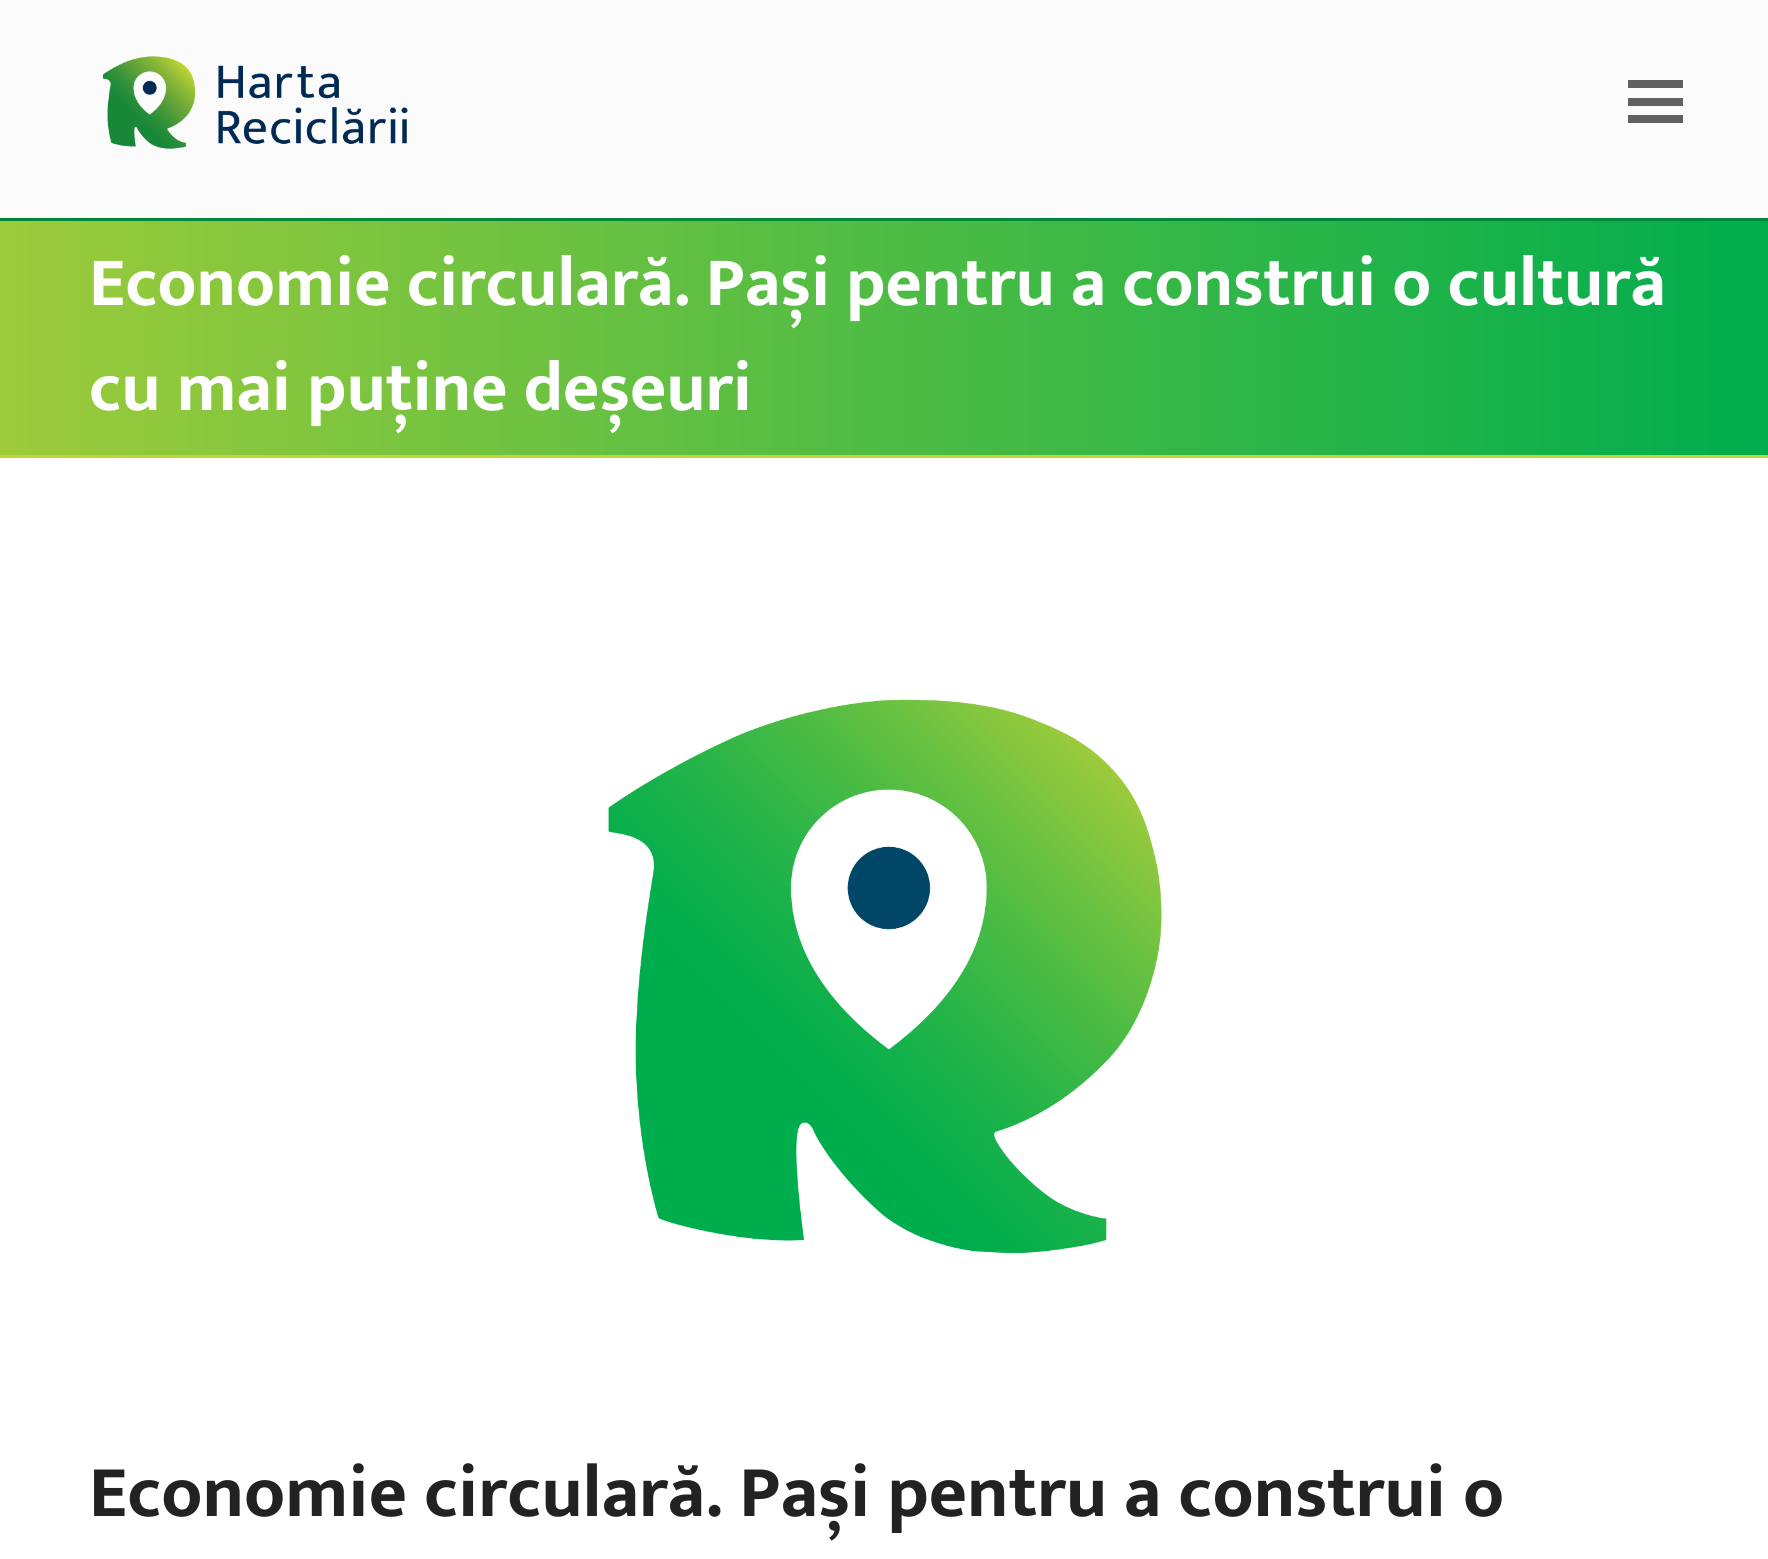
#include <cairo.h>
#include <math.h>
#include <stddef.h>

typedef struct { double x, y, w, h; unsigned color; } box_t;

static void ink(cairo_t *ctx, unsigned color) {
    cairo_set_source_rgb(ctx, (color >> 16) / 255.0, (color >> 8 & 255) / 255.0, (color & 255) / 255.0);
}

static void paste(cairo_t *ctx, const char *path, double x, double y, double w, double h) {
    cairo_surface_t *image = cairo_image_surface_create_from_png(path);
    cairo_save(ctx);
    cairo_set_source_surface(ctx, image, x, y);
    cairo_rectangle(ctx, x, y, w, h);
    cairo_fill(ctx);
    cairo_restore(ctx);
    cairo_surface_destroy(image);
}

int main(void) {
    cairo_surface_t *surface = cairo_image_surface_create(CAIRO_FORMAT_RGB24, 1768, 1559);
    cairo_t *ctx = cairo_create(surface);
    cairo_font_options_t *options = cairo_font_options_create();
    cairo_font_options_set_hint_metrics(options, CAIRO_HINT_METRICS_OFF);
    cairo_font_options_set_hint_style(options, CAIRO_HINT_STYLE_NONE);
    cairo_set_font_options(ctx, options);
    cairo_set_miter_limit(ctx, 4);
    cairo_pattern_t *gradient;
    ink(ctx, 0xFFFFFF);
    cairo_paint(ctx);
    ink(ctx, 0xFBFBFB);
    cairo_rectangle(ctx, 0, 0, 1768, 218);
    cairo_fill(ctx);
    paste(ctx, "media/1.png", 102, 56, 306, 93);
    {
        static const box_t items[] = {
            {1628, 98, 55, 8, 0x616161},
            {1628, 80, 55, 8, 0x616161},
            {1628, 115, 55, 8, 0x616161},
        };
        for (size_t i = 0; i < sizeof items / sizeof *items; i++) {
            ink(ctx, items[i].color);
            cairo_rectangle(ctx, items[i].x, items[i].y, items[i].w, items[i].h);
            cairo_fill(ctx);
        }
    }
    gradient = cairo_pattern_create_linear(0, 338, 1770, 337);
    cairo_pattern_add_color_stop_rgba(gradient, 0, 0.616, 0.796, 0.231, 1);
    cairo_pattern_add_color_stop_rgba(gradient, 1, 0, 0.678, 0.302, 1);
    cairo_set_source(ctx, gradient);
    cairo_pattern_destroy(gradient);
    cairo_rectangle(ctx, 0, 221, 1768, 234);
    cairo_fill(ctx);
    ink(ctx, 0x008739);
    cairo_rectangle(ctx, 0, 218, 1768, 3);
    cairo_fill(ctx);
    ink(ctx, 0xBFD730);
    cairo_rectangle(ctx, 0, 455, 1768, 3);
    cairo_fill(ctx);
    cairo_select_font_face(ctx, "Mukta", CAIRO_FONT_SLANT_NORMAL, CAIRO_FONT_WEIGHT_BOLD);
    cairo_set_font_size(ctx, 70);
    ink(ctx, 0xFFFFFF);
    cairo_move_to(ctx, 89, 305);
    cairo_show_text(ctx, "Economie circulară. Pași pentru a construi o cultură");
    cairo_move_to(ctx, 89, 410);
    cairo_show_text(ctx, "cu mai puține deșeuri");
    paste(ctx, "media/2.png", 608, 699, 554, 555);
    cairo_set_font_size(ctx, 73.8);
    ink(ctx, 0x222222);
    cairo_move_to(ctx, 89, 1516);
    cairo_show_text(ctx, "Economie circulară. Pași pentru a construi o");
    cairo_surface_write_to_png(surface, "image.png");
    cairo_font_options_destroy(options);
    cairo_destroy(ctx);
    cairo_surface_destroy(surface);
    return 0;
}
